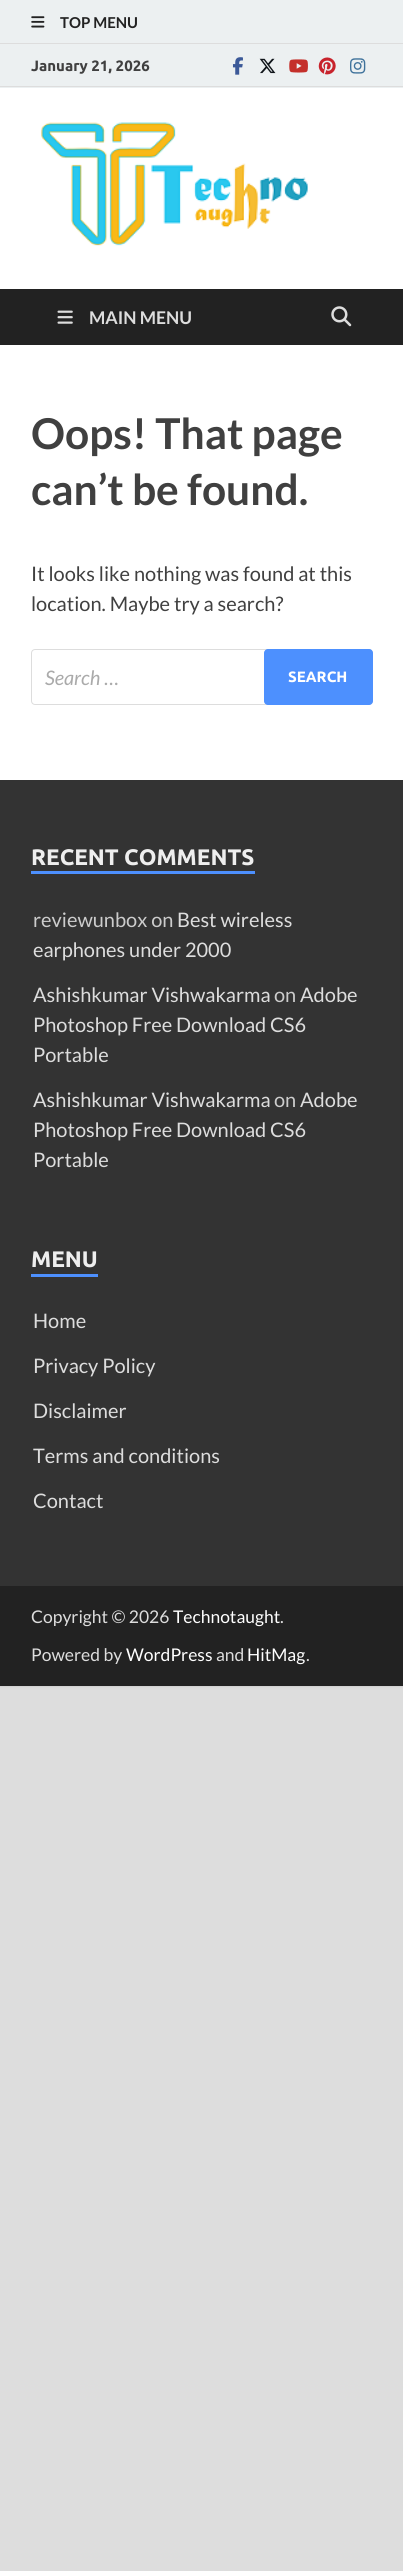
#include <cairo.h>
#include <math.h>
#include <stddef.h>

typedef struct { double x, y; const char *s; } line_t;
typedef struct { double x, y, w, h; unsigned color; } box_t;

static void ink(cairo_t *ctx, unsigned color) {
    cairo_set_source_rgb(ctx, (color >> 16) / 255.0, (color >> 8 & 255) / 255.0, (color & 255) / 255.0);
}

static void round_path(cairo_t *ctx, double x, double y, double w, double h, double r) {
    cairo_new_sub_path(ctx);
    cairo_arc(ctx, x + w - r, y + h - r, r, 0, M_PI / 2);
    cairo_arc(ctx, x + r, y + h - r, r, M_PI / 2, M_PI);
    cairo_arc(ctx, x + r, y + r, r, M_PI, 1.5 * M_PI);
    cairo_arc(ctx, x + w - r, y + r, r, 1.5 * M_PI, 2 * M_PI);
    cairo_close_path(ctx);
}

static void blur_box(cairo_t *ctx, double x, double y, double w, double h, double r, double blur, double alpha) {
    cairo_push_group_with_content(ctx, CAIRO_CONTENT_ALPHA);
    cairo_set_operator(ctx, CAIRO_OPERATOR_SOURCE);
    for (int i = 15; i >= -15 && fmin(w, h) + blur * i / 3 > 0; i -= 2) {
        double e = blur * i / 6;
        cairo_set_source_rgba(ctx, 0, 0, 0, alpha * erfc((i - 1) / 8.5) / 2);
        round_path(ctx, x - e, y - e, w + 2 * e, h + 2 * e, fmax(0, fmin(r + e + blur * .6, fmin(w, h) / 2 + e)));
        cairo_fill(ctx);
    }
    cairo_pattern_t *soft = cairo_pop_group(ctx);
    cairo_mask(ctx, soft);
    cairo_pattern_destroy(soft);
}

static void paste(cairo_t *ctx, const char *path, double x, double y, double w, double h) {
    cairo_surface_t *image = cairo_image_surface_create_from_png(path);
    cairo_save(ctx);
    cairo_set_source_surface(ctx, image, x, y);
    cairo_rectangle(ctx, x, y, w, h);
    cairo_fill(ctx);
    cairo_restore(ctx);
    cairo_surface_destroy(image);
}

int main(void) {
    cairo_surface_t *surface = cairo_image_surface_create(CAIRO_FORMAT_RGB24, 403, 2571);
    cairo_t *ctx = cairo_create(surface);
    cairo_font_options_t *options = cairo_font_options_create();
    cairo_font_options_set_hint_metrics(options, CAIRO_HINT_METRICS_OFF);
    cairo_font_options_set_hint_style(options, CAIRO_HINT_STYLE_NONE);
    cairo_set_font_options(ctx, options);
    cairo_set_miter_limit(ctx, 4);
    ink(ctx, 0xDDDDDD);
    cairo_paint(ctx);
    ink(ctx, 0xBBBBBB);
    blur_box(ctx, 0, 0, 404, 1686, 0, 1, 1);
    {
        static const box_t items[] = {
            {0, 88, 403, 692, 0xFFFFFF},
            {0, 0, 403, 43, 0xECF0F1},
            {0, 43, 403, 1, 0xDDDDDD},
        };
        for (size_t i = 0; i < sizeof items / sizeof *items; i++) {
            ink(ctx, items[i].color);
            cairo_rectangle(ctx, items[i].x, items[i].y, items[i].w, items[i].h);
            cairo_fill(ctx);
        }
    }
    paste(ctx, "media/1.png", 31, 16, 14, 12);
    cairo_select_font_face(ctx, "Lato", CAIRO_FONT_SLANT_NORMAL, CAIRO_FONT_WEIGHT_BOLD);
    cairo_set_font_size(ctx, 15);
    ink(ctx, 0x222222);
    cairo_move_to(ctx, 60, 28);
    cairo_show_text(ctx, "TOP MENU");
    ink(ctx, 0xECF0F1);
    cairo_rectangle(ctx, 0, 44, 403, 44);
    cairo_fill(ctx);
    ink(ctx, 0xDDDDDD);
    cairo_rectangle(ctx, 0, 86, 403, 1);
    cairo_fill(ctx);
    cairo_select_font_face(ctx, "Ubuntu", CAIRO_FONT_SLANT_NORMAL, CAIRO_FONT_WEIGHT_BOLD);
    ink(ctx, 0x404040);
    cairo_move_to(ctx, 31, 71);
    cairo_show_text(ctx, "January 21, 2026");
    paste(ctx, "media/2.png", 232, 57, 11, 18);
    paste(ctx, "media/3.png", 259, 58, 17, 16);
    paste(ctx, "media/4.png", 289, 59, 19, 14);
    paste(ctx, "media/5.png", 318, 57, 18, 18);
    paste(ctx, "media/6.png", 350, 58, 16, 16);
    paste(ctx, "media/7.png", 41, 122, 267, 124);
    ink(ctx, 0x222222);
    cairo_rectangle(ctx, 0, 289, 403, 56);
    cairo_fill(ctx);
    paste(ctx, "media/8.png", 57, 310, 16, 14);
    cairo_select_font_face(ctx, "Lato", CAIRO_FONT_SLANT_NORMAL, CAIRO_FONT_WEIGHT_BOLD);
    cairo_set_font_size(ctx, 17.5);
    ink(ctx, 0xDDDDDD);
    cairo_move_to(ctx, 89, 324);
    cairo_show_text(ctx, "MAIN MENU");
    paste(ctx, "media/9.png", 331, 306, 21, 21);
    cairo_set_font_size(ctx, 42.5);
    ink(ctx, 0x404040);
    cairo_move_to(ctx, 31, 449);
    cairo_show_text(ctx, "Oops! That page");
    cairo_move_to(ctx, 31, 505);
    cairo_show_text(ctx, "can’t be found.");
    cairo_select_font_face(ctx, "Lato", CAIRO_FONT_SLANT_NORMAL, CAIRO_FONT_WEIGHT_NORMAL);
    cairo_set_font_size(ctx, 20);
    cairo_move_to(ctx, 31, 581);
    cairo_show_text(ctx, "It looks like nothing was found at this");
    cairo_move_to(ctx, 31, 611);
    cairo_show_text(ctx, "location. Maybe try a search?");
    round_path(ctx, 31.5, 649.5, 341, 55, 3.5);
    ink(ctx, 0xDDDDDD);
    cairo_set_line_width(ctx, 1);
    cairo_stroke(ctx);
    cairo_select_font_face(ctx, "Lato", CAIRO_FONT_SLANT_ITALIC, CAIRO_FONT_WEIGHT_NORMAL);
    ink(ctx, 0xAAAAAA);
    cairo_move_to(ctx, 45, 685);
    cairo_show_text(ctx, "Search …");
    ink(ctx, 0x4D90FE);
    round_path(ctx, 264, 649, 109, 56, 4);
    cairo_fill(ctx);
    cairo_select_font_face(ctx, "Ubuntu", CAIRO_FONT_SLANT_NORMAL, CAIRO_FONT_WEIGHT_BOLD);
    cairo_set_font_size(ctx, 15);
    ink(ctx, 0xFFFFFF);
    cairo_move_to(ctx, 288, 682);
    cairo_show_text(ctx, "SEARCH");
    ink(ctx, 0x333333);
    cairo_rectangle(ctx, 0, 780, 403, 806);
    cairo_fill(ctx);
    ink(ctx, 0x4D90FE);
    cairo_rectangle(ctx, 31, 871, 224, 3);
    cairo_fill(ctx);
    cairo_set_font_size(ctx, 22.5);
    ink(ctx, 0xEEEEEE);
    cairo_move_to(ctx, 31, 865);
    cairo_show_text(ctx, "RECENT COMMENTS");
    cairo_select_font_face(ctx, "Lato", CAIRO_FONT_SLANT_NORMAL, CAIRO_FONT_WEIGHT_NORMAL);
    cairo_set_font_size(ctx, 20);
    ink(ctx, 0xCCCCCC);
    cairo_move_to(ctx, 33, 927);
    cairo_show_text(ctx, "reviewunbox on");
    ink(ctx, 0xDDDDDD);
    {
        static const line_t items[] = {
            {177, 927, "Best wireless"},
            {33, 957, "earphones under 2000"},
            {33, 1002, "Ashishkumar Vishwakarma"},
        };
        for (size_t i = 0; i < sizeof items / sizeof *items; i++) {
            cairo_move_to(ctx, items[i].x, items[i].y);
            cairo_show_text(ctx, items[i].s);
        }
    }
    ink(ctx, 0xCCCCCC);
    cairo_move_to(ctx, 274, 1002);
    cairo_show_text(ctx, "on");
    ink(ctx, 0xDDDDDD);
    {
        static const line_t items[] = {
            {300, 1002, "Adobe"},
            {33, 1032, "Photoshop Free Download CS6"},
            {33, 1062, "Portable"},
            {33, 1107, "Ashishkumar Vishwakarma"},
        };
        for (size_t i = 0; i < sizeof items / sizeof *items; i++) {
            cairo_move_to(ctx, items[i].x, items[i].y);
            cairo_show_text(ctx, items[i].s);
        }
    }
    ink(ctx, 0xCCCCCC);
    cairo_move_to(ctx, 274, 1107);
    cairo_show_text(ctx, "on");
    ink(ctx, 0xDDDDDD);
    {
        static const line_t items[] = {
            {300, 1107, "Adobe"},
            {33, 1137, "Photoshop Free Download CS6"},
            {33, 1167, "Portable"},
        };
        for (size_t i = 0; i < sizeof items / sizeof *items; i++) {
            cairo_move_to(ctx, items[i].x, items[i].y);
            cairo_show_text(ctx, items[i].s);
        }
    }
    ink(ctx, 0x4D90FE);
    cairo_rectangle(ctx, 31, 1274, 67, 3);
    cairo_fill(ctx);
    cairo_select_font_face(ctx, "Ubuntu", CAIRO_FONT_SLANT_NORMAL, CAIRO_FONT_WEIGHT_BOLD);
    cairo_set_font_size(ctx, 22.5);
    ink(ctx, 0xEEEEEE);
    cairo_move_to(ctx, 31, 1267);
    cairo_show_text(ctx, "MENU");
    cairo_select_font_face(ctx, "Lato", CAIRO_FONT_SLANT_NORMAL, CAIRO_FONT_WEIGHT_NORMAL);
    cairo_set_font_size(ctx, 20);
    ink(ctx, 0xDDDDDD);
    {
        static const line_t items[] = {
            {33, 1328, "Home"},
            {33, 1373, "Privacy Policy"},
            {33, 1418, "Disclaimer"},
            {33, 1463, "Terms and conditions"},
            {33, 1508, "Contact"},
        };
        for (size_t i = 0; i < sizeof items / sizeof *items; i++) {
            cairo_move_to(ctx, items[i].x, items[i].y);
            cairo_show_text(ctx, items[i].s);
        }
    }
    ink(ctx, 0x222222);
    cairo_rectangle(ctx, 0, 1586, 403, 100);
    cairo_fill(ctx);
    cairo_set_font_size(ctx, 17.5);
    ink(ctx, 0xDDDDDD);
    cairo_move_to(ctx, 31, 1623);
    cairo_show_text(ctx, "Copyright © 2026");
    ink(ctx, 0xFFFFFF);
    cairo_move_to(ctx, 173, 1623);
    cairo_show_text(ctx, "Technotaught");
    ink(ctx, 0xDDDDDD);
    cairo_move_to(ctx, 280, 1623);
    cairo_show_text(ctx, ".");
    cairo_move_to(ctx, 31, 1661);
    cairo_show_text(ctx, "Powered by");
    ink(ctx, 0xFFFFFF);
    cairo_move_to(ctx, 126, 1661);
    cairo_show_text(ctx, "WordPress");
    ink(ctx, 0xDDDDDD);
    cairo_move_to(ctx, 216, 1661);
    cairo_show_text(ctx, "and");
    ink(ctx, 0xFFFFFF);
    cairo_move_to(ctx, 247, 1661);
    cairo_show_text(ctx, "HitMag");
    ink(ctx, 0xDDDDDD);
    cairo_move_to(ctx, 306, 1661);
    cairo_show_text(ctx, ".");
    cairo_surface_write_to_png(surface, "image.png");
    cairo_font_options_destroy(options);
    cairo_destroy(ctx);
    cairo_surface_destroy(surface);
    return 0;
}
